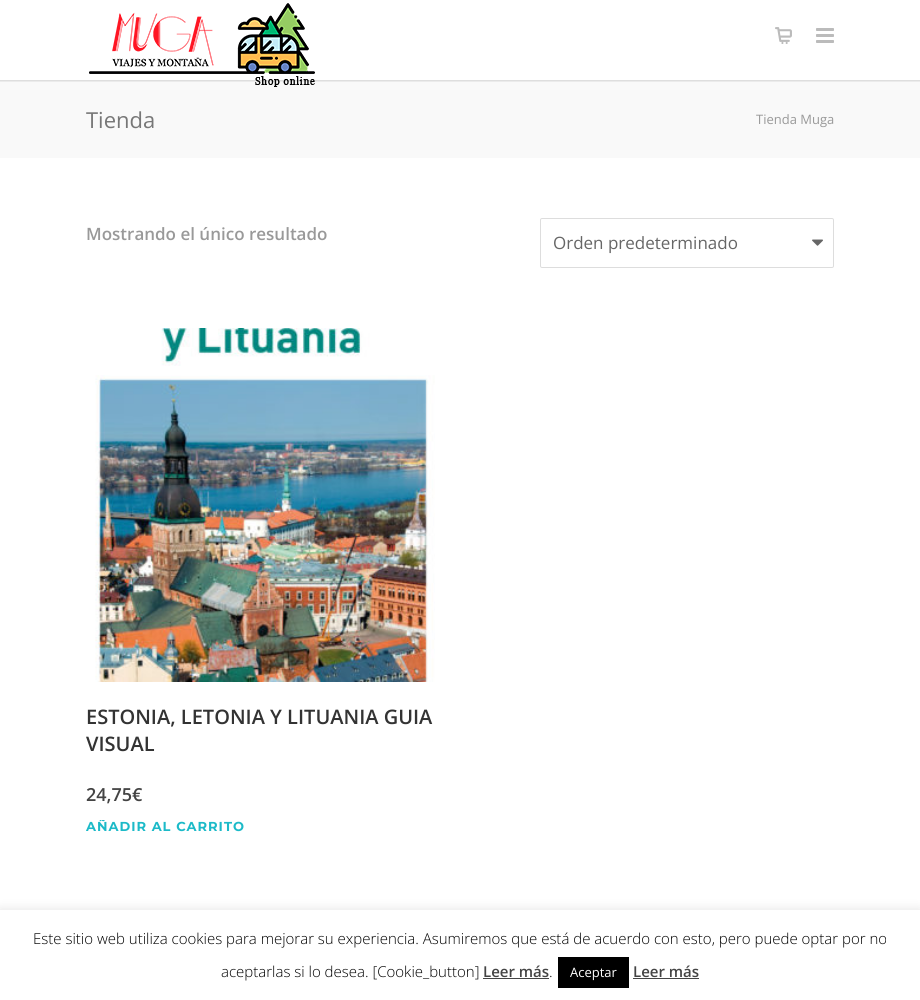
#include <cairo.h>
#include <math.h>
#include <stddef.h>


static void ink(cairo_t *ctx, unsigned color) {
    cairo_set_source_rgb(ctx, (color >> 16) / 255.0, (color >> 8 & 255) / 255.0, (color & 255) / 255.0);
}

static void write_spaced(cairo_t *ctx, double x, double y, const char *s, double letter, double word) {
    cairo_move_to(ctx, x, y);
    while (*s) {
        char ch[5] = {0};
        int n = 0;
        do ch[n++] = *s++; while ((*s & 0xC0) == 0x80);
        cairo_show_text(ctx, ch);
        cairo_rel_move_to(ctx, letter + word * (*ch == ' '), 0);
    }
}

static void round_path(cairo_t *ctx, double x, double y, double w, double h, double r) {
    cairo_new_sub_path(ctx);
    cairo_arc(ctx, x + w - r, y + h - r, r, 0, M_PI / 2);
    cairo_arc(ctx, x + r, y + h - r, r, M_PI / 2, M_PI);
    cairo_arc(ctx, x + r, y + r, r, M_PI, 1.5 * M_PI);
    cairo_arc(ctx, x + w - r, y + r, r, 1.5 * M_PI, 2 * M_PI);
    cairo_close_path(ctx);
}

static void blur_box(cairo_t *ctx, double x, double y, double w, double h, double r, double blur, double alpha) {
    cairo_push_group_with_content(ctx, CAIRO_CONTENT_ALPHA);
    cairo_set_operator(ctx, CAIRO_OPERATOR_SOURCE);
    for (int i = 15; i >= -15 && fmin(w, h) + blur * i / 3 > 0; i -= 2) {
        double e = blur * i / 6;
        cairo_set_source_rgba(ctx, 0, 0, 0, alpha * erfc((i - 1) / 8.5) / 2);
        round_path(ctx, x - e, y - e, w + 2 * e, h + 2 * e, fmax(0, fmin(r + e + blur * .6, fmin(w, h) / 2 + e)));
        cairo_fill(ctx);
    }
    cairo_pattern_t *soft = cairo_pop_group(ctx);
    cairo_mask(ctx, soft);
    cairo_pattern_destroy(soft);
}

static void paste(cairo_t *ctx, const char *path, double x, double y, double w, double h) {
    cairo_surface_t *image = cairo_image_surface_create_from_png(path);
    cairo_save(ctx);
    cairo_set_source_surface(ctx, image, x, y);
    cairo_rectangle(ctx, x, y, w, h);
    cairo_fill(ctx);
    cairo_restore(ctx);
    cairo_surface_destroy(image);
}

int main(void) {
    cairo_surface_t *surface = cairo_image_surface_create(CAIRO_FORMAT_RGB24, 920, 1000);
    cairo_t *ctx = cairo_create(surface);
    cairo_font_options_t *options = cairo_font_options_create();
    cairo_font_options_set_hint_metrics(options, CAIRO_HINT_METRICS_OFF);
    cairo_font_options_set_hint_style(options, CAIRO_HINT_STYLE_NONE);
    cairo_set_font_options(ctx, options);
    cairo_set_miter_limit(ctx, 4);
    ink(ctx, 0xFFFFFF);
    cairo_paint(ctx);
    ink(ctx, 0xF9F9F9);
    cairo_rectangle(ctx, 0, 80, 920, 78);
    cairo_fill(ctx);
    cairo_save(ctx);
    cairo_rectangle(ctx, 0, 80, 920, 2);
    cairo_clip(ctx);
    ink(ctx, 0x000000);
    blur_box(ctx, -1, -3, 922, 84, 0, 1, 0.16);
    cairo_restore(ctx);
    paste(ctx, "media/1.png", 89, 3, 226, 84);
    paste(ctx, "media/2.png", 775, 27, 17, 17);
    paste(ctx, "media/3.png", 816, 28, 18, 15);
    cairo_select_font_face(ctx, "Open Sans", CAIRO_FONT_SLANT_NORMAL, CAIRO_FONT_WEIGHT_NORMAL);
    cairo_set_font_size(ctx, 22);
    ink(ctx, 0x777777);
    cairo_move_to(ctx, 86, 128);
    cairo_show_text(ctx, "Tienda");
    cairo_set_font_size(ctx, 13);
    ink(ctx, 0x999999);
    cairo_move_to(ctx, 756, 124);
    cairo_show_text(ctx, "Tienda Muga");
    cairo_select_font_face(ctx, "Open Sans SemiBold", CAIRO_FONT_SLANT_NORMAL, CAIRO_FONT_WEIGHT_NORMAL);
    cairo_set_font_size(ctx, 17);
    cairo_move_to(ctx, 86, 240);
    cairo_show_text(ctx, "Mostrando el único resultado");
    paste(ctx, "media/4.png", 812, 239, 11, 7);
    round_path(ctx, 540.5, 218.5, 293, 49, 1.5);
    ink(ctx, 0xDDDDDD);
    cairo_set_line_width(ctx, 1);
    cairo_stroke(ctx);
    cairo_select_font_face(ctx, "Open Sans", CAIRO_FONT_SLANT_NORMAL, CAIRO_FONT_WEIGHT_NORMAL);
    ink(ctx, 0x666666);
    cairo_move_to(ctx, 553, 249);
    cairo_show_text(ctx, "Orden predeterminado");
    paste(ctx, "media/5.png", 95, 328, 340, 354);
    cairo_select_font_face(ctx, "Open Sans SemiBold", CAIRO_FONT_SLANT_NORMAL, CAIRO_FONT_WEIGHT_NORMAL);
    cairo_set_font_size(ctx, 20);
    ink(ctx, 0x333333);
    cairo_move_to(ctx, 86, 724);
    cairo_show_text(ctx, "ESTONIA, LETONIA Y LITUANIA GUIA");
    cairo_move_to(ctx, 86, 751);
    cairo_show_text(ctx, "VISUAL");
    cairo_set_font_size(ctx, 18);
    ink(ctx, 0x444444);
    cairo_move_to(ctx, 86, 801);
    cairo_show_text(ctx, "24,75€");
    cairo_save(ctx);
    cairo_rectangle(ctx, 86, 820, 179, 13);
    cairo_clip(ctx);
    cairo_select_font_face(ctx, "Montserrat", CAIRO_FONT_SLANT_NORMAL, CAIRO_FONT_WEIGHT_BOLD);
    cairo_set_font_size(ctx, 13);
    ink(ctx, 0x1CBAC8);
    write_spaced(ctx, 86, 831, "AÑADIR AL CARRITO", 1, 0);
    cairo_restore(ctx);
    ink(ctx, 0xACABAB);
    blur_box(ctx, 0, 909, 920, 90, 0, 5, 0.3);
    ink(ctx, 0xFFFFFF);
    cairo_rectangle(ctx, 0, 910, 920, 90);
    cairo_fill(ctx);
    cairo_select_font_face(ctx, "Open Sans Light", CAIRO_FONT_SLANT_NORMAL, CAIRO_FONT_WEIGHT_NORMAL);
    cairo_set_font_size(ctx, 15);
    ink(ctx, 0x000000);
    cairo_move_to(ctx, 33, 944);
    cairo_show_text(ctx, "Este sitio web utiliza cookies para mejorar su experiencia. Asumiremos que está de acuerdo con esto, pero puede optar por no");
    cairo_move_to(ctx, 221, 977);
    cairo_show_text(ctx, "aceptarlas si lo desea. [Cookie_button]");
    cairo_select_font_face(ctx, "Open Sans SemiBold", CAIRO_FONT_SLANT_NORMAL, CAIRO_FONT_WEIGHT_NORMAL);
    ink(ctx, 0x444444);
    cairo_move_to(ctx, 483, 977);
    cairo_show_text(ctx, "Leer más");
    cairo_rectangle(ctx, 483, 978, 66, 1);
    cairo_fill(ctx);
    cairo_select_font_face(ctx, "Open Sans Light", CAIRO_FONT_SLANT_NORMAL, CAIRO_FONT_WEIGHT_NORMAL);
    ink(ctx, 0x000000);
    cairo_move_to(ctx, 549, 977);
    cairo_show_text(ctx, ".");
    cairo_rectangle(ctx, 558, 957, 71, 31);
    cairo_fill(ctx);
    cairo_select_font_face(ctx, "Open Sans", CAIRO_FONT_SLANT_NORMAL, CAIRO_FONT_WEIGHT_NORMAL);
    cairo_set_font_size(ctx, 13);
    ink(ctx, 0xFFFFFF);
    cairo_move_to(ctx, 570, 977);
    cairo_show_text(ctx, "Aceptar");
    cairo_select_font_face(ctx, "Open Sans SemiBold", CAIRO_FONT_SLANT_NORMAL, CAIRO_FONT_WEIGHT_NORMAL);
    cairo_set_font_size(ctx, 15);
    ink(ctx, 0x444444);
    cairo_move_to(ctx, 633, 977);
    cairo_show_text(ctx, "Leer más");
    cairo_rectangle(ctx, 633, 978, 66, 1);
    cairo_fill(ctx);
    cairo_surface_write_to_png(surface, "image.png");
    cairo_font_options_destroy(options);
    cairo_destroy(ctx);
    cairo_surface_destroy(surface);
    return 0;
}
